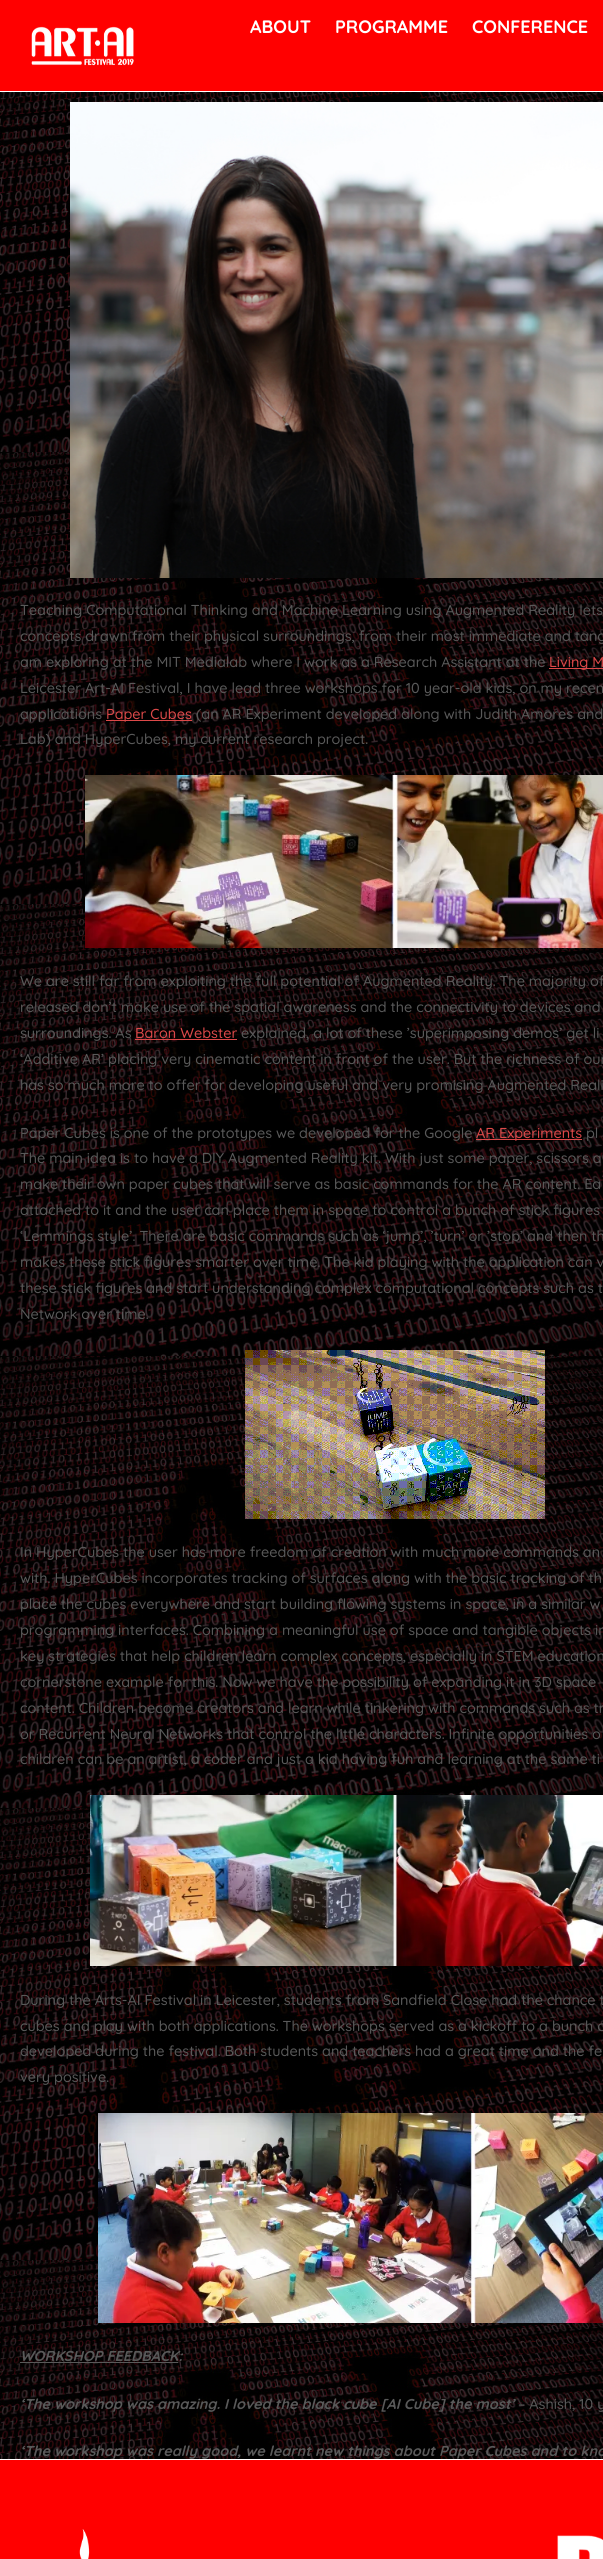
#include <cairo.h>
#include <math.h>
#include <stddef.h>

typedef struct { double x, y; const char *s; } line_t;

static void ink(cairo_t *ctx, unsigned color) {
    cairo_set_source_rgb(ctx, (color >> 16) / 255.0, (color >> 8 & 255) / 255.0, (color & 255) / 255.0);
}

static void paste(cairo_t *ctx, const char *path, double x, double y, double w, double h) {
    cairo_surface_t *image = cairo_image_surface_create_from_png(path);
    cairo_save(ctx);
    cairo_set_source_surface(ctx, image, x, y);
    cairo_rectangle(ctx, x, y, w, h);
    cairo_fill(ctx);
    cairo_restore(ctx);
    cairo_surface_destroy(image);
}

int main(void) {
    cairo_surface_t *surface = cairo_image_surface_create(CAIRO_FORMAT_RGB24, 603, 2559);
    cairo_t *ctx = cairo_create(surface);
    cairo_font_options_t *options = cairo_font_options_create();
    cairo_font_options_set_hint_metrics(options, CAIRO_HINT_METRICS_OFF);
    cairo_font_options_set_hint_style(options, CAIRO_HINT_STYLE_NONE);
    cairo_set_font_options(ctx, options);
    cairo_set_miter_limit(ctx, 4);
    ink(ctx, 0xFFFFFF);
    cairo_paint(ctx);
    paste(ctx, "media/1.png", 0, 92, 603, 2367);
    ink(ctx, 0xFF0000);
    cairo_rectangle(ctx, 0, 0, 603, 91);
    cairo_fill(ctx);
    paste(ctx, "media/2.png", 31, 26, 103, 40);
    cairo_select_font_face(ctx, "Quicksand", CAIRO_FONT_SLANT_NORMAL, CAIRO_FONT_WEIGHT_BOLD);
    cairo_set_font_size(ctx, 18);
    ink(ctx, 0xFFFFFF);
    {
        static const line_t items[] = {
            {250, 33, "ABOUT"},
            {335, 33, "PROGRAMME"},
            {472, 33, "CONFERENCE"},
        };
        for (size_t i = 0; i < sizeof items / sizeof *items; i++) {
            cairo_move_to(ctx, items[i].x, items[i].y);
            cairo_show_text(ctx, items[i].s);
        }
    }
    paste(ctx, "media/3.png", 70, 102, 533, 476);
    cairo_select_font_face(ctx, "Quicksand Medium", CAIRO_FONT_SLANT_NORMAL, CAIRO_FONT_WEIGHT_NORMAL);
    cairo_set_font_size(ctx, 14.4);
    ink(ctx, 0x595959);
    {
        static const line_t items[] = {
            {20, 615, "Teaching Computational Thinking and Machine Learning using Augmented Reality lets"},
            {20, 641, "concepts drawn from their physical surroundings, from their most immediate and tang"},
            {20, 667, "am exploring at the MIT Medialab where I work as a Research Assistant at the"},
        };
        for (size_t i = 0; i < sizeof items / sizeof *items; i++) {
            cairo_move_to(ctx, items[i].x, items[i].y);
            cairo_show_text(ctx, items[i].s);
        }
    }
    ink(ctx, 0xDD4949);
    cairo_rectangle(ctx, 549, 668, 54, 1);
    cairo_fill(ctx);
    cairo_move_to(ctx, 549, 667);
    cairo_show_text(ctx, "Living M");
    ink(ctx, 0x595959);
    cairo_move_to(ctx, 20, 693);
    cairo_show_text(ctx, "Leicester Art-AI Festival, I have lead three workshops for 10 year-old kids, on my recen");
    cairo_move_to(ctx, 20, 719);
    cairo_show_text(ctx, "applications");
    ink(ctx, 0xDD4949);
    cairo_rectangle(ctx, 106, 720, 86, 1);
    cairo_fill(ctx);
    cairo_move_to(ctx, 106, 719);
    cairo_show_text(ctx, "Paper Cubes");
    ink(ctx, 0x595959);
    cairo_move_to(ctx, 196, 719);
    cairo_show_text(ctx, "(an AR Experiment developed along with Judith Amores and");
    cairo_move_to(ctx, 20, 744);
    cairo_show_text(ctx, "Lab) and HyperCubes, my current research project.");
    paste(ctx, "media/4.png", 85, 775, 518, 173);
    {
        static const line_t items[] = {
            {20, 986, "We are still far from exploiting the full potential of Augmented Reality. The majority of"},
            {20, 1012, "released don’t make use of the spatial awareness and the connectivity to devices and"},
            {20, 1038, "surroundings. As"},
        };
        for (size_t i = 0; i < sizeof items / sizeof *items; i++) {
            cairo_move_to(ctx, items[i].x, items[i].y);
            cairo_show_text(ctx, items[i].s);
        }
    }
    ink(ctx, 0xDD4949);
    cairo_move_to(ctx, 135, 1038);
    cairo_show_text(ctx, "Baron Webster");
    cairo_rectangle(ctx, 135, 1039, 102, 1);
    cairo_fill(ctx);
    ink(ctx, 0x595959);
    {
        static const line_t items[] = {
            {241, 1038, "explained, a lot of these ’superimposing demos’ get li"},
            {20, 1064, "‘Additive AR’ placing very cinematic content in front of the user. But the richness of our"},
            {20, 1090, "has so much more to offer for developing useful and very promising Augmented Reali"},
            {20, 1138, "Paper Cubes is one of the prototypes we developed for the Google"},
        };
        for (size_t i = 0; i < sizeof items / sizeof *items; i++) {
            cairo_move_to(ctx, items[i].x, items[i].y);
            cairo_show_text(ctx, items[i].s);
        }
    }
    ink(ctx, 0xDD4949);
    cairo_rectangle(ctx, 476, 1139, 106, 1);
    cairo_fill(ctx);
    cairo_move_to(ctx, 476, 1138);
    cairo_show_text(ctx, "AR Experiments");
    ink(ctx, 0x595959);
    {
        static const line_t items[] = {
            {586, 1138, "pl"},
            {20, 1163, "The main idea is to have a DIY Augmented Reality kit. With just some paper, scissors a"},
            {20, 1189, "make their own paper cubes that will serve as basic commands for the AR content. Ea"},
            {20, 1215, "attached to it and the user can place them in space to control a bunch of stick figures"},
            {20, 1241, "‘Lemmings style’. There are basic commands such as ‘jump’, ’turn’ or ’stop’ and then th"},
            {20, 1267, "makes these stick figures smarter over time. The kid playing with the application can v"},
            {20, 1293, "these stick figures and start understanding complex computational concepts such as t"},
            {20, 1319, "Network over time."},
        };
        for (size_t i = 0; i < sizeof items / sizeof *items; i++) {
            cairo_move_to(ctx, items[i].x, items[i].y);
            cairo_show_text(ctx, items[i].s);
        }
    }
    paste(ctx, "media/5.png", 245, 1350, 300, 169);
    {
        static const line_t items[] = {
            {20, 1557, "In HyperCubes the user has more freedom of creation with much more commands an"},
            {20, 1583, "with. HyperCubes incorporates tracking of surfaces along with the basic tracking of th"},
            {20, 1609, "place the cubes everywhere and start building flowing systems in space, in a similar w"},
            {20, 1635, "programming interfaces. Combining a meaningful use of space and tangible objects in"},
            {20, 1661, "key strategies that help children learn complex concepts, especially in STEM education"},
            {20, 1687, "cornerstone example for this. Now we have the possibility of expanding it in 3D space"},
            {20, 1713, "content. Children become creators and learn while tinkering with commands such as tr"},
            {20, 1739, "or Recurrent Neural Networks that control the little characters. Infinite opportunities o"},
            {20, 1764, "children can be an artist, a coder and just a kid having fun and learning at the same ti"},
        };
        for (size_t i = 0; i < sizeof items / sizeof *items; i++) {
            cairo_move_to(ctx, items[i].x, items[i].y);
            cairo_show_text(ctx, items[i].s);
        }
    }
    paste(ctx, "media/6.png", 90, 1795, 513, 171);
    {
        static const line_t items[] = {
            {20, 2005, "During the Arts-AI Festival in Leicester, students from Sandfield Close had the chance t"},
            {20, 2031, "cubes and play with both applications. The workshops served as a kickoff to a bunch o"},
            {20, 2056, "developed during the festival. Both students and teachers had a great time and the fe"},
            {20, 2082, "very positive."},
        };
        for (size_t i = 0; i < sizeof items / sizeof *items; i++) {
            cairo_move_to(ctx, items[i].x, items[i].y);
            cairo_show_text(ctx, items[i].s);
        }
    }
    paste(ctx, "media/7.png", 98, 2113, 505, 210);
    cairo_select_font_face(ctx, "Quicksand", CAIRO_FONT_SLANT_ITALIC, CAIRO_FONT_WEIGHT_BOLD);
    cairo_move_to(ctx, 20, 2361);
    cairo_show_text(ctx, "WORKSHOP FEEDBACK:");
    cairo_rectangle(ctx, 20, 2362, 158, 1);
    cairo_fill(ctx);
    cairo_move_to(ctx, 20, 2409);
    cairo_show_text(ctx, "‘The workshop was amazing. I loved the black cube [AI Cube] the most’");
    cairo_select_font_face(ctx, "Quicksand Medium", CAIRO_FONT_SLANT_NORMAL, CAIRO_FONT_WEIGHT_NORMAL);
    cairo_move_to(ctx, 518, 2409);
    cairo_show_text(ctx, "– Ashish, 10 y");
    cairo_select_font_face(ctx, "Quicksand", CAIRO_FONT_SLANT_ITALIC, CAIRO_FONT_WEIGHT_BOLD);
    cairo_move_to(ctx, 20, 2456);
    cairo_show_text(ctx, "‘The workshop was really good, we learnt new things about Paper Cubes and to kno");
    ink(ctx, 0xFF0000);
    cairo_rectangle(ctx, 0, 2460, 603, 99);
    cairo_fill(ctx);
    paste(ctx, "media/8.png", 79, 2529, 11, 30);
    paste(ctx, "media/9.png", 557, 2535, 46, 24);
    cairo_surface_write_to_png(surface, "image.png");
    cairo_font_options_destroy(options);
    cairo_destroy(ctx);
    cairo_surface_destroy(surface);
    return 0;
}
